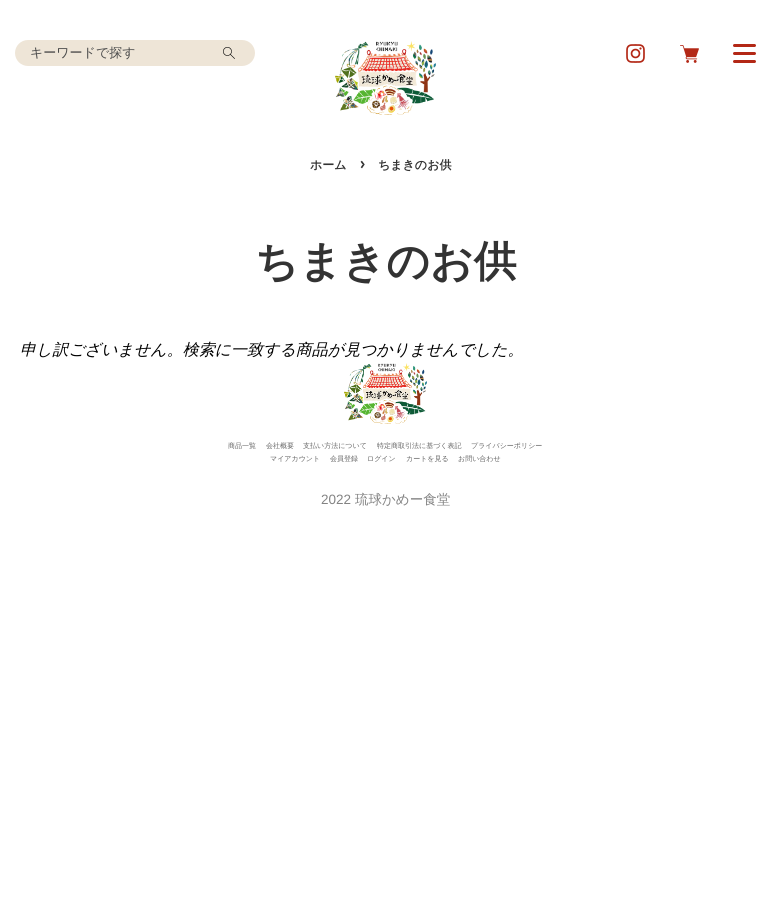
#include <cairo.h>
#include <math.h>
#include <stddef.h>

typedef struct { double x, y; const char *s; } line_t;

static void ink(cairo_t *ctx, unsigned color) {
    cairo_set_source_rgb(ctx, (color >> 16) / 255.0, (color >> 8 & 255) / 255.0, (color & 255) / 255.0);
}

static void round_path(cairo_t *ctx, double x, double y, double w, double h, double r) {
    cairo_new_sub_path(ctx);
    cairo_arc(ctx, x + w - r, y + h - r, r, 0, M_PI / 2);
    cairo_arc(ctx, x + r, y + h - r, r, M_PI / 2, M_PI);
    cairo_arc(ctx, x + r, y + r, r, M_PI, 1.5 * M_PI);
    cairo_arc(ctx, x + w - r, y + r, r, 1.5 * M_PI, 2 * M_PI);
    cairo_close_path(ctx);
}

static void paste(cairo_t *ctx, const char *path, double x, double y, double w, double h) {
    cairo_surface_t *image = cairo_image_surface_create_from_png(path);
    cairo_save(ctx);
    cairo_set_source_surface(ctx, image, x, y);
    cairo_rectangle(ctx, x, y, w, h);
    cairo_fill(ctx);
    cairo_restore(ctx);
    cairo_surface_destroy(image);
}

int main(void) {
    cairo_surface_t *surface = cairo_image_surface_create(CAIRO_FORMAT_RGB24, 771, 917);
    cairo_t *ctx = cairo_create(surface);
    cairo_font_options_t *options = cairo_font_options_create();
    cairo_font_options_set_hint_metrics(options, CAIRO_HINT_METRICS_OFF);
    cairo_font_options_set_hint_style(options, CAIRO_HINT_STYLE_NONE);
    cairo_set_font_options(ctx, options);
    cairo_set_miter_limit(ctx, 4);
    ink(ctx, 0xFFFFFF);
    cairo_paint(ctx);
    ink(ctx, 0xEEE5D7);
    round_path(ctx, 15, 40, 240, 26, 13);
    cairo_fill(ctx);
    cairo_select_font_face(ctx, "WenQuanYi Zen Hei Medium", CAIRO_FONT_SLANT_NORMAL, CAIRO_FONT_WEIGHT_NORMAL);
    cairo_set_font_size(ctx, 13);
    ink(ctx, 0x4B4B4B);
    cairo_move_to(ctx, 30, 57);
    cairo_show_text(ctx, "キーワードで探す");
    paste(ctx, "media/1.png", 223, 47, 12, 12);
    paste(ctx, "media/2.png", 335, 41, 101, 74);
    paste(ctx, "media/3.png", 626, 44, 19, 19);
    paste(ctx, "media/4.png", 680, 45, 19, 18);
    ink(ctx, 0xB32816);
    round_path(ctx, 733, 52, 23, 3, 1.5);
    cairo_fill(ctx);
    round_path(ctx, 733, 44, 23, 3, 1.5);
    cairo_fill(ctx);
    round_path(ctx, 733, 60, 23, 3, 1.5);
    cairo_fill(ctx);
    cairo_select_font_face(ctx, "WenQuanYi Zen Hei", CAIRO_FONT_SLANT_NORMAL, CAIRO_FONT_WEIGHT_BOLD);
    cairo_set_font_size(ctx, 12);
    ink(ctx, 0x333333);
    cairo_move_to(ctx, 310, 169);
    cairo_show_text(ctx, "ホーム");
    cairo_select_font_face(ctx, "PT Sans", CAIRO_FONT_SLANT_NORMAL, CAIRO_FONT_WEIGHT_BOLD);
    cairo_set_font_size(ctx, 17);
    cairo_move_to(ctx, 360, 169);
    cairo_show_text(ctx, "›");
    cairo_select_font_face(ctx, "WenQuanYi Zen Hei", CAIRO_FONT_SLANT_NORMAL, CAIRO_FONT_WEIGHT_BOLD);
    cairo_set_font_size(ctx, 12);
    cairo_move_to(ctx, 378, 169);
    cairo_show_text(ctx, "ちまきのお供");
    cairo_set_font_size(ctx, 42.75);
    cairo_move_to(ctx, 255, 276);
    cairo_show_text(ctx, "ちまきのお供");
    cairo_select_font_face(ctx, "WenQuanYi Zen Hei Medium", CAIRO_FONT_SLANT_ITALIC, CAIRO_FONT_WEIGHT_NORMAL);
    cairo_set_font_size(ctx, 16);
    ink(ctx, 0x000000);
    cairo_move_to(ctx, 20, 355);
    cairo_show_text(ctx, "申し訳ございません。検索に一致する商品が見つかりませんでした。");
    paste(ctx, "media/5.png", 344, 363, 83, 61);
    cairo_select_font_face(ctx, "WenQuanYi Zen Hei Medium", CAIRO_FONT_SLANT_NORMAL, CAIRO_FONT_WEIGHT_NORMAL);
    cairo_set_font_size(ctx, 7);
    ink(ctx, 0x636363);
    {
        static const line_t items[] = {
            {228, 448, "商品一覧"},
            {266, 448, "会社概要"},
            {303, 448, "支払い方法について"},
            {377, 448, "特定商取引法に基づく表記"},
            {471, 448, "プライバシーポリシー"},
            {270, 461, "マイアカウント"},
            {330, 461, "会員登録"},
            {367, 461, "ログイン"},
            {406, 461, "カートを見る"},
            {458, 461, "お問い合わせ"},
        };
        for (size_t i = 0; i < sizeof items / sizeof *items; i++) {
            cairo_move_to(ctx, items[i].x, items[i].y);
            cairo_show_text(ctx, items[i].s);
        }
    }
    cairo_select_font_face(ctx, "Liberation Sans", CAIRO_FONT_SLANT_NORMAL, CAIRO_FONT_WEIGHT_NORMAL);
    cairo_set_font_size(ctx, 13.5);
    ink(ctx, 0x838383);
    cairo_move_to(ctx, 321, 504);
    cairo_show_text(ctx, "2022");
    cairo_select_font_face(ctx, "WenQuanYi Zen Hei Medium", CAIRO_FONT_SLANT_NORMAL, CAIRO_FONT_WEIGHT_NORMAL);
    cairo_move_to(ctx, 355, 504);
    cairo_show_text(ctx, "琉球かめー食堂");
    cairo_surface_write_to_png(surface, "image.png");
    cairo_font_options_destroy(options);
    cairo_destroy(ctx);
    cairo_surface_destroy(surface);
    return 0;
}
